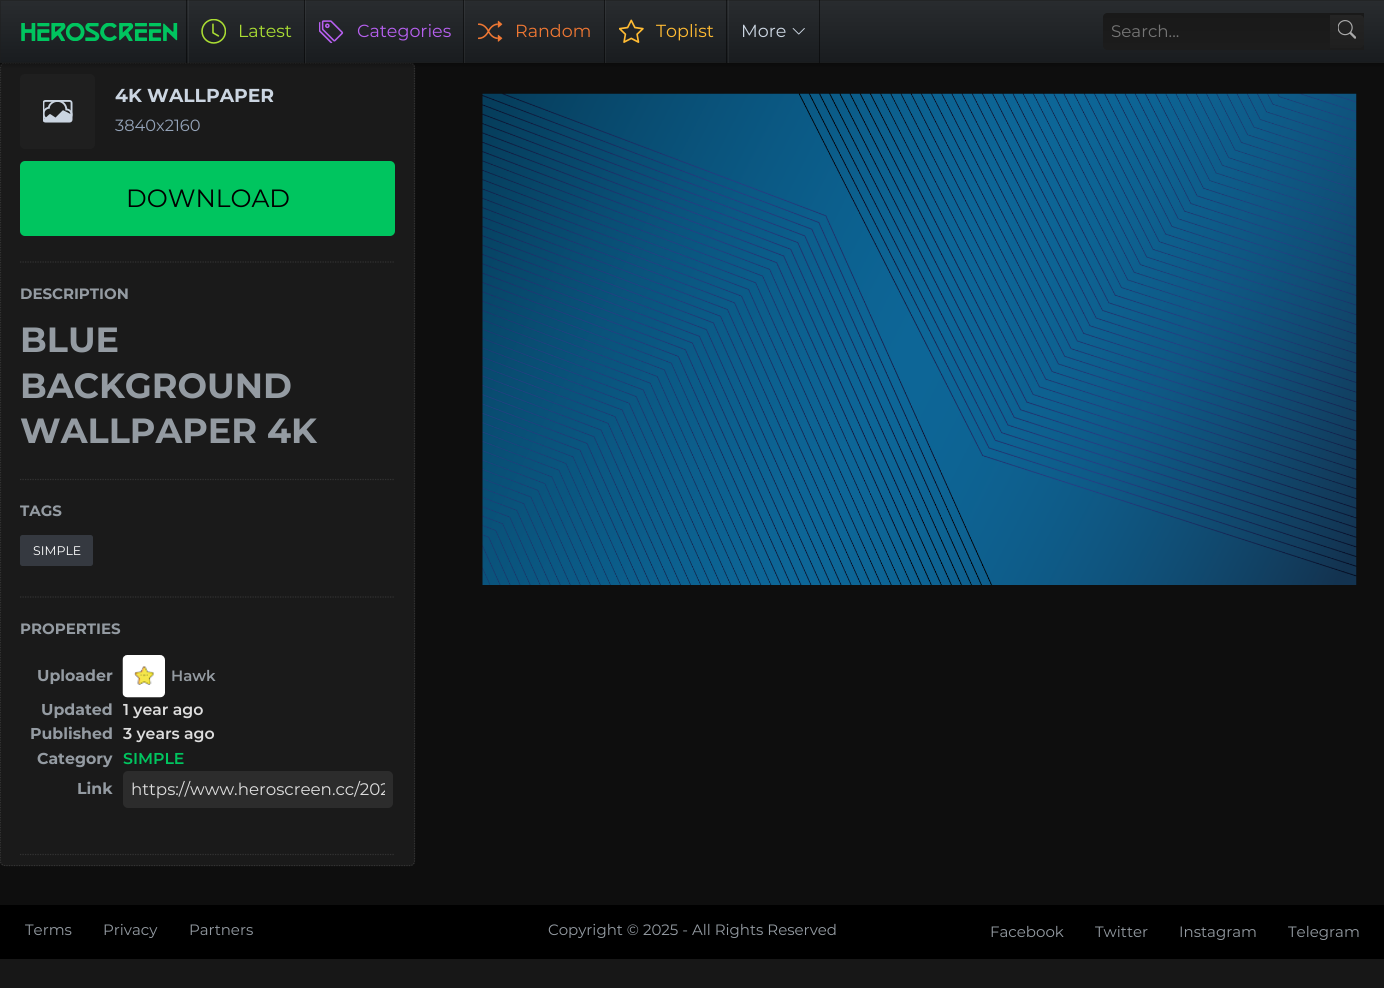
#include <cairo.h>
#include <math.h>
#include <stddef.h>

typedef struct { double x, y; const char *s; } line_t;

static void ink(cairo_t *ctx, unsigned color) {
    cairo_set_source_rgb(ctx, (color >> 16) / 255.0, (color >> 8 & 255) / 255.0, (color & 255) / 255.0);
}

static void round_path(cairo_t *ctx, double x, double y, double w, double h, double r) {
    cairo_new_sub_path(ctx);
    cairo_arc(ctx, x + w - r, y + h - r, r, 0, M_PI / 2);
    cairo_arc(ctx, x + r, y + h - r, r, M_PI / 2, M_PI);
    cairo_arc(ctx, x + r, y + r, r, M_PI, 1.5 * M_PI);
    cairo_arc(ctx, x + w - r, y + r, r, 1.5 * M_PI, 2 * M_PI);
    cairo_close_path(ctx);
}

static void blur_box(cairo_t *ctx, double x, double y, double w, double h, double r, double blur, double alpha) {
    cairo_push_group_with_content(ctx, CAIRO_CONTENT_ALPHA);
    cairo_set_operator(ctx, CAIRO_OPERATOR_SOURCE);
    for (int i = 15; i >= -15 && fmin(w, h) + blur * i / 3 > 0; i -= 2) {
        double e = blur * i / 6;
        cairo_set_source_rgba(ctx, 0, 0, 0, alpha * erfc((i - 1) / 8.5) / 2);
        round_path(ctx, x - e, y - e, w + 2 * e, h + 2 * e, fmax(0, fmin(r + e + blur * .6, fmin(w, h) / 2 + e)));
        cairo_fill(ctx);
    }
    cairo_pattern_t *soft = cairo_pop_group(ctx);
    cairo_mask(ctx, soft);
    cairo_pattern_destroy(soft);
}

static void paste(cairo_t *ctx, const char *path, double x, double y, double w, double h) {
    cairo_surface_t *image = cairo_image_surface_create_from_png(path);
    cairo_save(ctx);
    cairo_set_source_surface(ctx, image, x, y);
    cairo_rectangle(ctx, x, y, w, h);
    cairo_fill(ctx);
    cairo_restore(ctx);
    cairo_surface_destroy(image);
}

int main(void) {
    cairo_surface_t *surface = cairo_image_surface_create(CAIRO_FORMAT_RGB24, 1384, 988);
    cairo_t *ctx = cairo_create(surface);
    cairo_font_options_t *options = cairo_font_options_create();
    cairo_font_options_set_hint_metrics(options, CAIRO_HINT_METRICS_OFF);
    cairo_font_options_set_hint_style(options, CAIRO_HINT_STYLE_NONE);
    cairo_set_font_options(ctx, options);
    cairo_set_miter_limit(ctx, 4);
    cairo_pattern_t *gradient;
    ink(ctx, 0x171717);
    cairo_paint(ctx);
    ink(ctx, 0x0E0E0E);
    cairo_rectangle(ctx, 0, 63, 1384, 842);
    cairo_fill(ctx);
    ink(ctx, 0x1A1A1A);
    round_path(ctx, 0, 63, 415, 803, 5);
    cairo_fill(ctx);
    cairo_new_path(ctx);
    cairo_move_to(ctx, 5, 63);
    cairo_line_to(ctx, 410, 63);
    cairo_curve_to(ctx, 412.5, 63, 414.5, 65, 414.5, 67.5);
    cairo_line_to(ctx, 414.5, 861);
    cairo_curve_to(ctx, 414.5, 863.5, 412.5, 865.5, 410, 865.5);
    cairo_line_to(ctx, 5, 865.5);
    cairo_curve_to(ctx, 2.5, 865.5, 0.5, 863.5, 0.5, 861);
    cairo_line_to(ctx, 0.5, 67.5);
    cairo_curve_to(ctx, 0.5, 65, 2.5, 63, 5, 63);
    cairo_close_path(ctx);
    ink(ctx, 0x333333);
    cairo_set_line_width(ctx, 1.2);
    cairo_set_dash(ctx, (double[]){1.25, 1.25}, 2, 0);
    cairo_stroke(ctx);
    ink(ctx, 0x000000);
    blur_box(ctx, 0, 0, 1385, 63, 0, 3, 0.55);
    gradient = cairo_pattern_create_linear(693, 0, 693, 63);
    cairo_pattern_add_color_stop_rgba(gradient, 0, 0.161, 0.173, 0.184, 1);
    cairo_pattern_add_color_stop_rgba(gradient, 1, 0.098, 0.11, 0.122, 1);
    cairo_set_source(ctx, gradient);
    cairo_pattern_destroy(gradient);
    cairo_rectangle(ctx, 0, 0, 1384, 63);
    cairo_fill(ctx);
    cairo_rectangle(ctx, 0.5, 0.5, 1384, 62);
    cairo_set_source_rgba(ctx, 0.122, 0.122, 0.122, 0.5);
    cairo_set_line_width(ctx, 1);
    cairo_set_dash(ctx, NULL, 0, 0);
    cairo_stroke(ctx);
    cairo_set_source_rgba(ctx, 0, 0, 0, 0.5);
    cairo_rectangle(ctx, 186, 0, 1, 63);
    cairo_fill(ctx);
    paste(ctx, "media/1.png", 21, 23, 157, 18);
    cairo_rectangle(ctx, 304, 0, 1, 63);
    cairo_fill(ctx);
    cairo_set_source_rgba(ctx, 1, 1, 1, 0.05);
    cairo_rectangle(ctx, 188, 0, 1, 63);
    cairo_fill(ctx);
    paste(ctx, "media/2.png", 201, 19, 25, 25);
    cairo_select_font_face(ctx, "Montserrat Thin", CAIRO_FONT_SLANT_NORMAL, CAIRO_FONT_WEIGHT_NORMAL);
    cairo_set_font_size(ctx, 17.5);
    ink(ctx, 0xAADD33);
    cairo_move_to(ctx, 238, 37);
    cairo_show_text(ctx, "Latest");
    cairo_set_source_rgba(ctx, 0, 0, 0, 0.5);
    cairo_rectangle(ctx, 463, 0, 1, 63);
    cairo_fill(ctx);
    cairo_set_source_rgba(ctx, 1, 1, 1, 0.05);
    cairo_rectangle(ctx, 305, 0, 1, 63);
    cairo_fill(ctx);
    paste(ctx, "media/3.png", 319, 20, 25, 24);
    ink(ctx, 0xB760F0);
    cairo_move_to(ctx, 357, 37);
    cairo_show_text(ctx, "Categories");
    cairo_set_source_rgba(ctx, 0, 0, 0, 0.5);
    cairo_rectangle(ctx, 604, 0, 1, 63);
    cairo_fill(ctx);
    cairo_set_source_rgba(ctx, 1, 1, 1, 0.05);
    cairo_rectangle(ctx, 464, 0, 1, 63);
    cairo_fill(ctx);
    paste(ctx, "media/4.png", 478, 20, 25, 22);
    ink(ctx, 0xEE7733);
    cairo_move_to(ctx, 515, 37);
    cairo_show_text(ctx, "Random");
    cairo_set_source_rgba(ctx, 0, 0, 0, 0.5);
    cairo_rectangle(ctx, 726, 0, 1, 63);
    cairo_fill(ctx);
    cairo_set_source_rgba(ctx, 1, 1, 1, 0.05);
    cairo_rectangle(ctx, 605, 0, 1, 63);
    cairo_fill(ctx);
    paste(ctx, "media/5.png", 619, 19, 25, 24);
    ink(ctx, 0xFFBB33);
    cairo_move_to(ctx, 656, 37);
    cairo_show_text(ctx, "Toplist");
    cairo_set_source_rgba(ctx, 0, 0, 0, 0.5);
    cairo_rectangle(ctx, 819, 0, 1, 63);
    cairo_fill(ctx);
    cairo_set_source_rgba(ctx, 1, 1, 1, 0.05);
    cairo_rectangle(ctx, 728, 0, 1, 63);
    cairo_fill(ctx);
    ink(ctx, 0xCBD5E1);
    cairo_move_to(ctx, 741, 37);
    cairo_show_text(ctx, "More");
    paste(ctx, "media/6.png", 792, 28, 13, 7);
    gradient = cairo_pattern_create_linear(1233, 12, 1233, 50);
    cairo_pattern_add_color_stop_rgba(gradient, 0, 0.098, 0.098, 0.098, 1);
    cairo_pattern_add_color_stop_rgba(gradient, 1, 0.11, 0.11, 0.11, 1);
    cairo_set_source(ctx, gradient);
    cairo_pattern_destroy(gradient);
    cairo_new_path(ctx);
    cairo_move_to(ctx, 1107, 13);
    cairo_line_to(ctx, 1364, 13);
    cairo_line_to(ctx, 1364, 50);
    cairo_line_to(ctx, 1107, 50);
    cairo_curve_to(ctx, 1105, 50, 1103, 48, 1103, 46);
    cairo_line_to(ctx, 1103, 17);
    cairo_curve_to(ctx, 1103, 15, 1105, 13, 1107, 13);
    cairo_close_path(ctx);
    cairo_fill(ctx);
    cairo_set_font_size(ctx, 16.7);
    ink(ctx, 0x757575);
    cairo_move_to(ctx, 1111, 37);
    cairo_show_text(ctx, "Search...");
    gradient = cairo_pattern_create_linear(1347, 15, 1347, 48);
    cairo_pattern_add_color_stop_rgba(gradient, 0, 0.141, 0.141, 0.141, 1);
    cairo_pattern_add_color_stop_rgba(gradient, 1, 0.122, 0.122, 0.122, 1);
    cairo_set_source(ctx, gradient);
    cairo_pattern_destroy(gradient);
    cairo_new_path(ctx);
    cairo_move_to(ctx, 1330, 15);
    cairo_line_to(ctx, 1360, 15);
    cairo_curve_to(ctx, 1362, 15, 1364, 17, 1364, 19);
    cairo_line_to(ctx, 1364, 44);
    cairo_curve_to(ctx, 1364, 46, 1362, 48, 1360, 48);
    cairo_line_to(ctx, 1330, 48);
    cairo_close_path(ctx);
    cairo_fill(ctx);
    paste(ctx, "media/7.png", 1338, 20, 18, 19);
    ink(ctx, 0x1F1F1F);
    round_path(ctx, 20, 74, 75, 75, 5);
    cairo_fill(ctx);
    paste(ctx, "media/8.png", 43, 100, 30, 23);
    cairo_select_font_face(ctx, "Montserrat", CAIRO_FONT_SLANT_NORMAL, CAIRO_FONT_WEIGHT_BOLD);
    cairo_set_font_size(ctx, 18.75);
    ink(ctx, 0xCBD5E1);
    cairo_move_to(ctx, 115, 102);
    cairo_show_text(ctx, "4K WALLPAPER");
    cairo_select_font_face(ctx, "Montserrat Thin", CAIRO_FONT_SLANT_NORMAL, CAIRO_FONT_WEIGHT_NORMAL);
    cairo_set_font_size(ctx, 16.25);
    ink(ctx, 0x94A3B8);
    cairo_move_to(ctx, 115, 131);
    cairo_show_text(ctx, "3840x2160");
    ink(ctx, 0x00C55F);
    round_path(ctx, 20, 161, 375, 75, 5);
    cairo_fill(ctx);
    cairo_set_font_size(ctx, 25);
    ink(ctx, 0x000000);
    cairo_move_to(ctx, 126, 207);
    cairo_show_text(ctx, "DOWNLOAD");
    cairo_new_path(ctx);
    cairo_move_to(ctx, 20, 262);
    cairo_line_to(ctx, 395, 262);
    ink(ctx, 0x333333);
    cairo_set_line_width(ctx, 1.2);
    cairo_set_dash(ctx, (double[]){1.25, 1.25}, 2, 0);
    cairo_stroke(ctx);
    cairo_select_font_face(ctx, "Montserrat", CAIRO_FONT_SLANT_NORMAL, CAIRO_FONT_WEIGHT_BOLD);
    cairo_set_font_size(ctx, 15);
    ink(ctx, 0x949BA2);
    cairo_move_to(ctx, 20, 299);
    cairo_show_text(ctx, "DESCRIPTION");
    cairo_set_font_size(ctx, 35);
    {
        static const line_t items[] = {
            {20, 352, "BLUE"},
            {20, 398, "BACKGROUND"},
            {20, 443, "WALLPAPER 4K"},
        };
        for (size_t i = 0; i < sizeof items / sizeof *items; i++) {
            cairo_move_to(ctx, items[i].x, items[i].y);
            cairo_show_text(ctx, items[i].s);
        }
    }
    cairo_new_path(ctx);
    cairo_move_to(ctx, 20, 479.5);
    cairo_line_to(ctx, 395, 479.5);
    ink(ctx, 0x333333);
    cairo_stroke(ctx);
    cairo_set_font_size(ctx, 15);
    ink(ctx, 0x949BA2);
    cairo_move_to(ctx, 20, 516);
    cairo_show_text(ctx, "TAGS");
    ink(ctx, 0x353940);
    round_path(ctx, 20, 535, 73, 31, 2.5);
    cairo_fill(ctx);
    cairo_select_font_face(ctx, "Montserrat Thin", CAIRO_FONT_SLANT_NORMAL, CAIRO_FONT_WEIGHT_NORMAL);
    cairo_set_font_size(ctx, 12.5);
    ink(ctx, 0xFFFFFF);
    cairo_move_to(ctx, 33, 555);
    cairo_show_text(ctx, "SIMPLE");
    cairo_new_path(ctx);
    cairo_move_to(ctx, 20, 597);
    cairo_line_to(ctx, 395, 597);
    ink(ctx, 0x333333);
    cairo_stroke(ctx);
    ink(ctx, 0x1A1A1A);
    round_path(ctx, 1, 608, 413, 257, 5);
    cairo_fill(ctx);
    cairo_select_font_face(ctx, "Montserrat", CAIRO_FONT_SLANT_NORMAL, CAIRO_FONT_WEIGHT_BOLD);
    cairo_set_font_size(ctx, 15);
    ink(ctx, 0x949BA2);
    cairo_move_to(ctx, 20, 634);
    cairo_show_text(ctx, "PROPERTIES");
    cairo_set_font_size(ctx, 15.75);
    cairo_move_to(ctx, 37, 681);
    cairo_show_text(ctx, "Uploader");
    ink(ctx, 0x1F1F1F);
    round_path(ctx, 123, 655, 42, 43, 5);
    cairo_fill(ctx);
    paste(ctx, "media/9.png", 122, 655, 43, 43);
    cairo_select_font_face(ctx, "Montserrat SemiBold", CAIRO_FONT_SLANT_NORMAL, CAIRO_FONT_WEIGHT_NORMAL);
    cairo_set_font_size(ctx, 15);
    ink(ctx, 0x949BA2);
    cairo_move_to(ctx, 171, 681);
    cairo_show_text(ctx, "Hawk");
    cairo_select_font_face(ctx, "Montserrat", CAIRO_FONT_SLANT_NORMAL, CAIRO_FONT_WEIGHT_BOLD);
    cairo_set_font_size(ctx, 15.75);
    cairo_move_to(ctx, 41, 715);
    cairo_show_text(ctx, "Updated");
    cairo_select_font_face(ctx, "Montserrat SemiBold", CAIRO_FONT_SLANT_NORMAL, CAIRO_FONT_WEIGHT_NORMAL);
    ink(ctx, 0xDDDDDD);
    cairo_move_to(ctx, 123, 715);
    cairo_show_text(ctx, "1 year ago");
    cairo_select_font_face(ctx, "Montserrat", CAIRO_FONT_SLANT_NORMAL, CAIRO_FONT_WEIGHT_BOLD);
    ink(ctx, 0x949BA2);
    cairo_move_to(ctx, 30, 739);
    cairo_show_text(ctx, "Published");
    cairo_select_font_face(ctx, "Montserrat SemiBold", CAIRO_FONT_SLANT_NORMAL, CAIRO_FONT_WEIGHT_NORMAL);
    ink(ctx, 0xDDDDDD);
    cairo_move_to(ctx, 123, 739);
    cairo_show_text(ctx, "3 years ago");
    cairo_select_font_face(ctx, "Montserrat", CAIRO_FONT_SLANT_NORMAL, CAIRO_FONT_WEIGHT_BOLD);
    ink(ctx, 0x949BA2);
    cairo_move_to(ctx, 37, 764);
    cairo_show_text(ctx, "Category");
    cairo_select_font_face(ctx, "Montserrat SemiBold", CAIRO_FONT_SLANT_NORMAL, CAIRO_FONT_WEIGHT_NORMAL);
    ink(ctx, 0x00C55F);
    cairo_move_to(ctx, 123, 764);
    cairo_show_text(ctx, "SIMPLE");
    cairo_select_font_face(ctx, "Montserrat", CAIRO_FONT_SLANT_NORMAL, CAIRO_FONT_WEIGHT_BOLD);
    ink(ctx, 0x949BA2);
    cairo_move_to(ctx, 77, 794);
    cairo_show_text(ctx, "Link");
    ink(ctx, 0x2C2C2C);
    round_path(ctx, 123, 771, 270, 37, 5);
    cairo_fill(ctx);
    cairo_save(ctx);
    cairo_rectangle(ctx, 131, 779, 254, 20);
    cairo_clip(ctx);
    cairo_select_font_face(ctx, "Montserrat Thin", CAIRO_FONT_SLANT_NORMAL, CAIRO_FONT_WEIGHT_NORMAL);
    cairo_set_font_size(ctx, 16.7);
    ink(ctx, 0xDDDDDD);
    cairo_move_to(ctx, 131, 795);
    cairo_show_text(ctx, "https://www.heroscreen.cc/202");
    cairo_restore(ctx);
    cairo_new_path(ctx);
    cairo_move_to(ctx, 20, 854.5);
    cairo_line_to(ctx, 395, 854.5);
    ink(ctx, 0x333333);
    cairo_stroke(ctx);
    paste(ctx, "media/10.png", 482, 93, 875, 492);
    ink(ctx, 0x000000);
    cairo_rectangle(ctx, 0, 905, 1384, 54);
    cairo_fill(ctx);
    cairo_select_font_face(ctx, "Montserrat Thin", CAIRO_FONT_SLANT_NORMAL, CAIRO_FONT_WEIGHT_NORMAL);
    cairo_set_font_size(ctx, 15);
    ink(ctx, 0x949BA2);
    {
        static const line_t items[] = {
            {25, 935, "Terms"},
            {103, 935, "Privacy"},
            {189, 935, "Partners"},
            {548, 935, "Copyright © 2025 - All Rights Reserved"},
            {990, 937, "Facebook"},
            {1095, 937, "Twitter"},
            {1179, 937, "Instagram"},
            {1288, 937, "Telegram"},
        };
        for (size_t i = 0; i < sizeof items / sizeof *items; i++) {
            cairo_move_to(ctx, items[i].x, items[i].y);
            cairo_show_text(ctx, items[i].s);
        }
    }
    cairo_surface_write_to_png(surface, "image.png");
    cairo_font_options_destroy(options);
    cairo_destroy(ctx);
    cairo_surface_destroy(surface);
    return 0;
}
